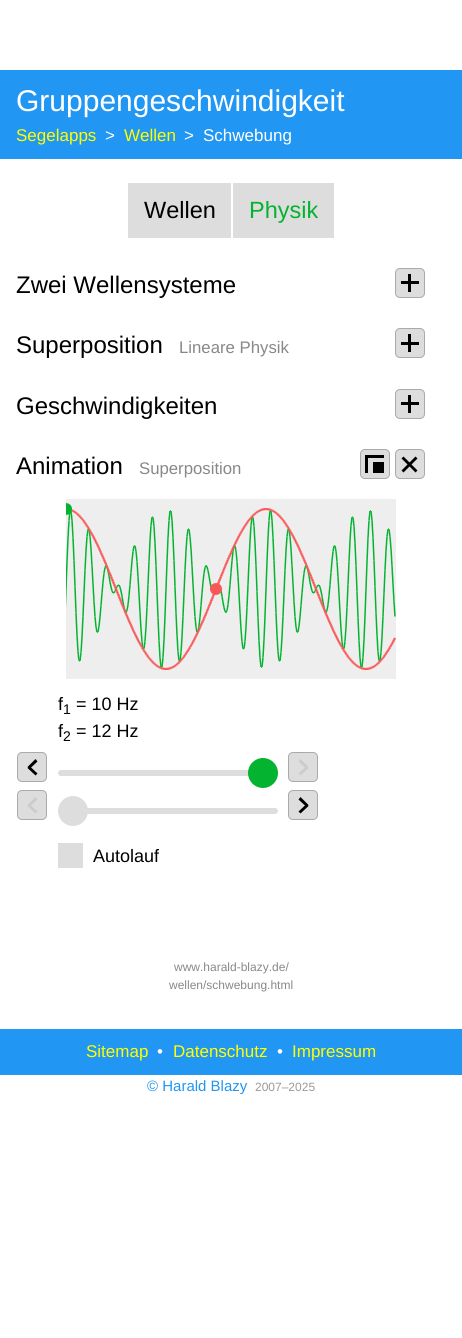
#include <cairo.h>
#include <math.h>
#include <stddef.h>

typedef struct { double x, y, w, h; unsigned color; } box_t;

static void ink(cairo_t *ctx, unsigned color) {
    cairo_set_source_rgb(ctx, (color >> 16) / 255.0, (color >> 8 & 255) / 255.0, (color & 255) / 255.0);
}

static void round_path(cairo_t *ctx, double x, double y, double w, double h, double r) {
    cairo_new_sub_path(ctx);
    cairo_arc(ctx, x + w - r, y + h - r, r, 0, M_PI / 2);
    cairo_arc(ctx, x + r, y + h - r, r, M_PI / 2, M_PI);
    cairo_arc(ctx, x + r, y + r, r, M_PI, 1.5 * M_PI);
    cairo_arc(ctx, x + w - r, y + r, r, 1.5 * M_PI, 2 * M_PI);
    cairo_close_path(ctx);
}

static void paste(cairo_t *ctx, const char *path, double x, double y, double w, double h) {
    cairo_surface_t *image = cairo_image_surface_create_from_png(path);
    cairo_save(ctx);
    cairo_set_source_surface(ctx, image, x, y);
    cairo_rectangle(ctx, x, y, w, h);
    cairo_fill(ctx);
    cairo_restore(ctx);
    cairo_surface_destroy(image);
}

int main(void) {
    cairo_surface_t *surface = cairo_image_surface_create(CAIRO_FORMAT_RGB24, 462, 1338);
    cairo_t *ctx = cairo_create(surface);
    cairo_font_options_t *options = cairo_font_options_create();
    cairo_font_options_set_hint_metrics(options, CAIRO_HINT_METRICS_OFF);
    cairo_font_options_set_hint_style(options, CAIRO_HINT_STYLE_NONE);
    cairo_set_font_options(ctx, options);
    cairo_set_miter_limit(ctx, 4);
    ink(ctx, 0xFFFFFF);
    cairo_paint(ctx);
    ink(ctx, 0x2196F3);
    cairo_rectangle(ctx, 0, 70, 462, 89);
    cairo_fill(ctx);
    cairo_select_font_face(ctx, "Liberation Sans", CAIRO_FONT_SLANT_NORMAL, CAIRO_FONT_WEIGHT_NORMAL);
    cairo_set_font_size(ctx, 30);
    ink(ctx, 0xFFFFFF);
    cairo_move_to(ctx, 16, 111);
    cairo_show_text(ctx, "Gruppengeschwindigkeit");
    cairo_set_font_size(ctx, 17);
    ink(ctx, 0xFFFF00);
    cairo_move_to(ctx, 16, 141);
    cairo_show_text(ctx, "Segelapps");
    ink(ctx, 0xFFFFFF);
    cairo_move_to(ctx, 105, 141);
    cairo_show_text(ctx, ">");
    ink(ctx, 0xFFFF00);
    cairo_move_to(ctx, 124, 141);
    cairo_show_text(ctx, "Wellen");
    ink(ctx, 0xFFFFFF);
    cairo_move_to(ctx, 184, 141);
    cairo_show_text(ctx, ">");
    cairo_move_to(ctx, 203, 141);
    cairo_show_text(ctx, "Schwebung");
    ink(ctx, 0xDDDDDD);
    cairo_rectangle(ctx, 128, 183, 103, 55);
    cairo_fill(ctx);
    cairo_set_font_size(ctx, 23.5);
    ink(ctx, 0x000000);
    cairo_move_to(ctx, 144, 218);
    cairo_show_text(ctx, "Wellen");
    ink(ctx, 0xDDDDDD);
    cairo_rectangle(ctx, 233, 183, 101, 55);
    cairo_fill(ctx);
    ink(ctx, 0x04B431);
    cairo_move_to(ctx, 249, 218);
    cairo_show_text(ctx, "Physik");
    cairo_set_font_size(ctx, 24);
    ink(ctx, 0x000000);
    cairo_move_to(ctx, 16, 293);
    cairo_show_text(ctx, "Zwei Wellensysteme");
    ink(ctx, 0xDDDDDD);
    round_path(ctx, 395.5, 268.5, 29, 29, 4.5);
    cairo_fill_preserve(ctx);
    ink(ctx, 0xAAAAAA);
    cairo_set_line_width(ctx, 1);
    cairo_stroke(ctx);
    ink(ctx, 0x000000);
    cairo_rectangle(ctx, 408, 274, 3, 18);
    cairo_fill(ctx);
    cairo_rectangle(ctx, 401, 281, 18, 3);
    cairo_fill(ctx);
    cairo_move_to(ctx, 16, 353);
    cairo_show_text(ctx, "Superposition");
    cairo_set_font_size(ctx, 16.75);
    ink(ctx, 0x888888);
    cairo_move_to(ctx, 179, 353);
    cairo_show_text(ctx, "Lineare Physik");
    ink(ctx, 0xDDDDDD);
    round_path(ctx, 395.5, 328.5, 29, 29, 4.5);
    cairo_fill_preserve(ctx);
    ink(ctx, 0xAAAAAA);
    cairo_stroke(ctx);
    ink(ctx, 0x000000);
    cairo_rectangle(ctx, 408, 334, 3, 18);
    cairo_fill(ctx);
    cairo_rectangle(ctx, 401, 342, 18, 3);
    cairo_fill(ctx);
    cairo_set_font_size(ctx, 24);
    cairo_move_to(ctx, 16, 414);
    cairo_show_text(ctx, "Geschwindigkeiten");
    ink(ctx, 0xDDDDDD);
    round_path(ctx, 395.5, 389.5, 29, 29, 4.5);
    cairo_fill_preserve(ctx);
    ink(ctx, 0xAAAAAA);
    cairo_stroke(ctx);
    ink(ctx, 0x000000);
    cairo_rectangle(ctx, 408, 395, 3, 18);
    cairo_fill(ctx);
    cairo_rectangle(ctx, 401, 402, 18, 3);
    cairo_fill(ctx);
    cairo_move_to(ctx, 16, 474);
    cairo_show_text(ctx, "Animation");
    cairo_set_font_size(ctx, 16.75);
    ink(ctx, 0x888888);
    cairo_move_to(ctx, 139, 474);
    cairo_show_text(ctx, "Superposition");
    ink(ctx, 0xDDDDDD);
    round_path(ctx, 360.5, 449.5, 29, 29, 4.5);
    cairo_fill_preserve(ctx);
    ink(ctx, 0xAAAAAA);
    cairo_stroke(ctx);
    {
        static const box_t items[] = {
            {365, 455, 3, 18, 0x000000},
            {366, 455, 18, 3, 0x000000},
            {373, 462, 11, 11, 0x000000},
        };
        for (size_t i = 0; i < sizeof items / sizeof *items; i++) {
            ink(ctx, items[i].color);
            cairo_rectangle(ctx, items[i].x, items[i].y, items[i].w, items[i].h);
            cairo_fill(ctx);
        }
    }
    ink(ctx, 0xDDDDDD);
    round_path(ctx, 395.5, 449.5, 29, 29, 4.5);
    cairo_fill_preserve(ctx);
    ink(ctx, 0xAAAAAA);
    cairo_stroke(ctx);
    ink(ctx, 0x000000);
    cairo_new_path(ctx);
    cairo_move_to(ctx, 417.5, 470.5);
    cairo_line_to(ctx, 415.5, 472.5);
    cairo_line_to(ctx, 401.5, 458.5);
    cairo_line_to(ctx, 403.5, 456.5);
    cairo_close_path(ctx);
    cairo_fill(ctx);
    cairo_new_path(ctx);
    cairo_move_to(ctx, 417.5, 458.5);
    cairo_line_to(ctx, 403.5, 472.5);
    cairo_line_to(ctx, 401.5, 470.5);
    cairo_line_to(ctx, 415.5, 456.5);
    cairo_close_path(ctx);
    cairo_fill(ctx);
    paste(ctx, "media/1.png", 66, 499, 330, 180);
    cairo_set_font_size(ctx, 18);
    cairo_move_to(ctx, 58, 710);
    cairo_show_text(ctx, "f");
    cairo_set_font_size(ctx, 14);
    cairo_move_to(ctx, 63, 714);
    cairo_show_text(ctx, "1");
    cairo_set_font_size(ctx, 18);
    cairo_move_to(ctx, 76, 710);
    cairo_show_text(ctx, "= 10 Hz");
    cairo_move_to(ctx, 58, 737);
    cairo_show_text(ctx, "f");
    cairo_set_font_size(ctx, 14);
    cairo_move_to(ctx, 63, 741);
    cairo_show_text(ctx, "2");
    cairo_set_font_size(ctx, 18);
    cairo_move_to(ctx, 76, 737);
    cairo_show_text(ctx, "= 12 Hz");
    ink(ctx, 0xDDDDDD);
    round_path(ctx, 17.5, 752.5, 29, 29, 4.5);
    cairo_fill_preserve(ctx);
    ink(ctx, 0xAAAAAA);
    cairo_stroke(ctx);
    ink(ctx, 0x000000);
    cairo_new_path(ctx);
    cairo_move_to(ctx, 37.5, 761.5);
    cairo_line_to(ctx, 29.5, 769);
    cairo_line_to(ctx, 27.5, 767);
    cairo_line_to(ctx, 35.5, 759);
    cairo_close_path(ctx);
    cairo_fill(ctx);
    cairo_new_path(ctx);
    cairo_move_to(ctx, 35.5, 775.5);
    cairo_line_to(ctx, 27.5, 768);
    cairo_line_to(ctx, 29.5, 766);
    cairo_line_to(ctx, 37.5, 773.5);
    cairo_close_path(ctx);
    cairo_fill(ctx);
    ink(ctx, 0xDDDDDD);
    round_path(ctx, 58, 770, 220, 6, 3);
    cairo_fill(ctx);
    ink(ctx, 0x04B431);
    cairo_arc(ctx, 263, 773, 15, 0, 2 * M_PI);
    cairo_fill(ctx);
    ink(ctx, 0xDDDDDD);
    round_path(ctx, 288.5, 752.5, 29, 29, 4.5);
    cairo_fill_preserve(ctx);
    ink(ctx, 0xAAAAAA);
    cairo_stroke(ctx);
    ink(ctx, 0xCCCCCC);
    cairo_new_path(ctx);
    cairo_move_to(ctx, 300.5, 759);
    cairo_line_to(ctx, 308.5, 767);
    cairo_line_to(ctx, 306.5, 769);
    cairo_line_to(ctx, 298.5, 761.5);
    cairo_close_path(ctx);
    cairo_fill(ctx);
    cairo_new_path(ctx);
    cairo_move_to(ctx, 298.5, 773.5);
    cairo_line_to(ctx, 306.5, 766);
    cairo_line_to(ctx, 308.5, 768);
    cairo_line_to(ctx, 300.5, 775.5);
    cairo_close_path(ctx);
    cairo_fill(ctx);
    ink(ctx, 0xDDDDDD);
    round_path(ctx, 17.5, 790.5, 29, 29, 4.5);
    cairo_fill_preserve(ctx);
    ink(ctx, 0xAAAAAA);
    cairo_stroke(ctx);
    ink(ctx, 0xCCCCCC);
    cairo_new_path(ctx);
    cairo_move_to(ctx, 37.5, 799.5);
    cairo_line_to(ctx, 29.5, 807);
    cairo_line_to(ctx, 27.5, 805);
    cairo_line_to(ctx, 35.5, 797);
    cairo_close_path(ctx);
    cairo_fill(ctx);
    cairo_new_path(ctx);
    cairo_move_to(ctx, 35.5, 813.5);
    cairo_line_to(ctx, 27.5, 806);
    cairo_line_to(ctx, 29.5, 804);
    cairo_line_to(ctx, 37.5, 811.5);
    cairo_close_path(ctx);
    cairo_fill(ctx);
    ink(ctx, 0xDDDDDD);
    round_path(ctx, 58, 808, 220, 6, 3);
    cairo_fill(ctx);
    cairo_arc(ctx, 73, 811, 15, 0, 2 * M_PI);
    cairo_fill(ctx);
    round_path(ctx, 288.5, 790.5, 29, 29, 4.5);
    cairo_fill_preserve(ctx);
    ink(ctx, 0xAAAAAA);
    cairo_stroke(ctx);
    ink(ctx, 0x000000);
    cairo_new_path(ctx);
    cairo_move_to(ctx, 300.5, 797);
    cairo_line_to(ctx, 308.5, 805);
    cairo_line_to(ctx, 306.5, 807);
    cairo_line_to(ctx, 298.5, 799.5);
    cairo_close_path(ctx);
    cairo_fill(ctx);
    cairo_new_path(ctx);
    cairo_move_to(ctx, 298.5, 811.5);
    cairo_line_to(ctx, 306.5, 804);
    cairo_line_to(ctx, 308.5, 806);
    cairo_line_to(ctx, 300.5, 813.5);
    cairo_close_path(ctx);
    cairo_fill(ctx);
    ink(ctx, 0xDDDDDD);
    cairo_rectangle(ctx, 58, 843, 25, 25);
    cairo_fill(ctx);
    ink(ctx, 0x000000);
    cairo_move_to(ctx, 93, 862);
    cairo_show_text(ctx, "Autolauf");
    cairo_set_font_size(ctx, 12);
    ink(ctx, 0x888888);
    cairo_move_to(ctx, 174, 971);
    cairo_show_text(ctx, "www.harald-blazy.de/");
    cairo_move_to(ctx, 169, 989);
    cairo_show_text(ctx, "wellen/schwebung.html");
    ink(ctx, 0x2196F3);
    cairo_rectangle(ctx, 0, 1029, 462, 46);
    cairo_fill(ctx);
    cairo_set_font_size(ctx, 17);
    ink(ctx, 0xFFFF00);
    cairo_move_to(ctx, 86, 1057);
    cairo_show_text(ctx, "Sitemap");
    ink(ctx, 0xFFFFFF);
    cairo_move_to(ctx, 157, 1057);
    cairo_show_text(ctx, "•");
    ink(ctx, 0xFFFF00);
    cairo_move_to(ctx, 173, 1057);
    cairo_show_text(ctx, "Datenschutz");
    ink(ctx, 0xFFFFFF);
    cairo_move_to(ctx, 277, 1057);
    cairo_show_text(ctx, "•");
    ink(ctx, 0xFFFF00);
    cairo_move_to(ctx, 292, 1057);
    cairo_show_text(ctx, "Impressum");
    cairo_set_font_size(ctx, 15);
    ink(ctx, 0x2196F3);
    cairo_move_to(ctx, 147, 1091);
    cairo_show_text(ctx, "© Harald Blazy");
    cairo_set_font_size(ctx, 12);
    ink(ctx, 0x999999);
    cairo_move_to(ctx, 255, 1091);
    cairo_show_text(ctx, "2007–2025");
    cairo_surface_write_to_png(surface, "image.png");
    cairo_font_options_destroy(options);
    cairo_destroy(ctx);
    cairo_surface_destroy(surface);
    return 0;
}
